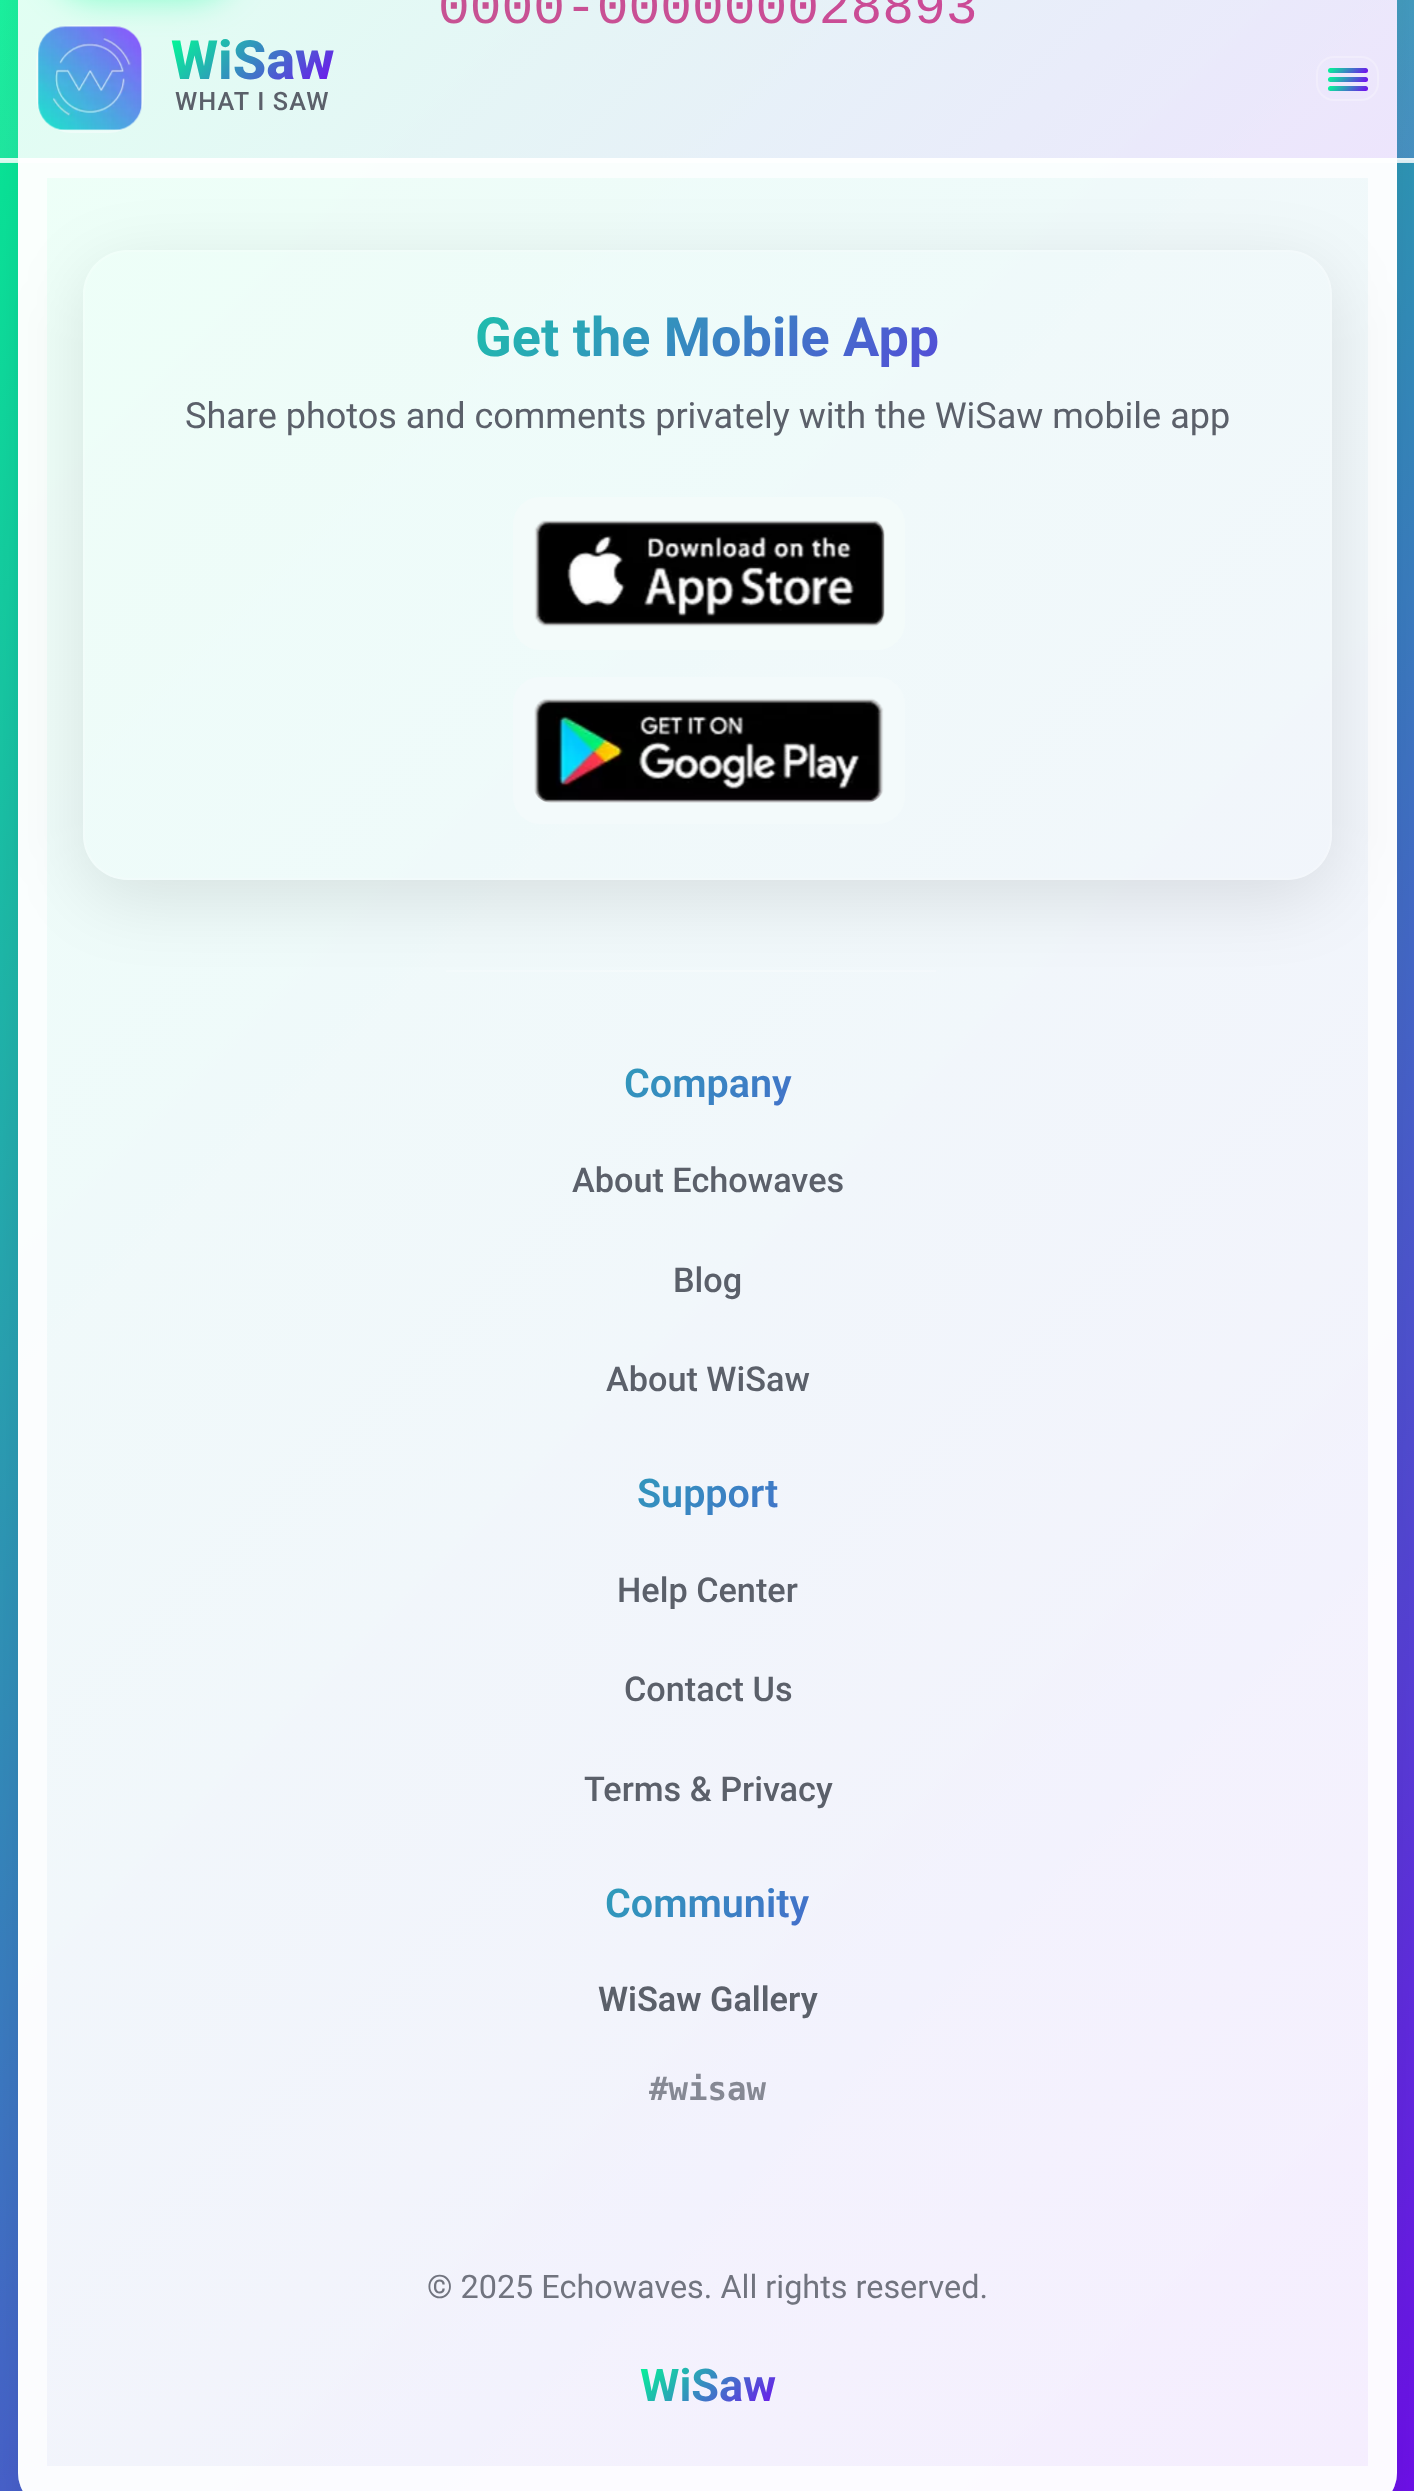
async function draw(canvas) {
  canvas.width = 1414;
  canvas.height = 2491;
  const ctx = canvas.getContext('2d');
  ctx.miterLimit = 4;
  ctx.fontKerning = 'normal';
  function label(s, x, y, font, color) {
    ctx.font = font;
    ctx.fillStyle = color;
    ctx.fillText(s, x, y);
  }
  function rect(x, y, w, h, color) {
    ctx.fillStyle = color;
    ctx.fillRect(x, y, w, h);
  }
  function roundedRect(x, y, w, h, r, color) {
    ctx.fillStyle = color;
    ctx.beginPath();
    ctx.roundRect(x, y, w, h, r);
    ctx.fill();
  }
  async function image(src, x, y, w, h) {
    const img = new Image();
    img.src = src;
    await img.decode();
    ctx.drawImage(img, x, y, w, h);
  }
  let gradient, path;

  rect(0, 0, 1414, 2491, '#fff');
  gradient = ctx.createLinearGradient(-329, 160, 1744, 2234);
  gradient.addColorStop(0, '#00ff94');
  gradient.addColorStop(1, '#720cf0');
  ctx.fillStyle = gradient;
  ctx.fillRect(0, 0, 1414, 2491);
  ctx.save();
  path = new Path2D('M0 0H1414V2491H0ZM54-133H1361C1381-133 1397-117 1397-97V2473C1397 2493 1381 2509 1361 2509H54C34 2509 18 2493 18 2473V-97C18-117 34-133 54-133Z');
  ctx.clip(path, 'evenodd');
  ctx.fillStyle = '#0000001f';
  ctx.filter = 'blur(36px)';
  ctx.beginPath();
  ctx.roundRect(18, -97, 1379, 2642, 36);
  ctx.fill();
  ctx.filter = 'none';
  ctx.restore();
  roundedRect(18, -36, 1379, 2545, 36, '#fffffffa');
  ctx.beginPath();
  ctx.roundRect(19, -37, 1377, 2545, 35);
  ctx.strokeStyle = '#ffffff66';
  ctx.lineWidth = 2;
  ctx.stroke();
  ctx.fillStyle = '#00ff9480';
  ctx.filter = 'blur(17px)';
  ctx.beginPath();
  ctx.roundRect(52, -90, 184, 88, 44);
  ctx.fill();
  ctx.filter = 'none';
  label('0000-000000028893', 438, 23, '52.9px Liberation Mono', '#d63384');
  gradient = ctx.createLinearGradient(-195, 420, 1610, 2224);
  gradient.addColorStop(0, '#00ff940d');
  gradient.addColorStop(1, '#720cf00d');
  ctx.fillStyle = gradient;
  ctx.fillRect(47, 178, 1321, 2288);
  gradient = ctx.createLinearGradient(83, 971, 1332, 971);
  gradient.addColorStop(0, '#ffffff00');
  gradient.addColorStop(0.5, '#ffffff4d');
  gradient.addColorStop(1, '#ffffff00');
  ctx.fillStyle = gradient;
  ctx.fillRect(446, 970, 490, 2);
  ctx.save();
  path = new Path2D('M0 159H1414V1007H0ZM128 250H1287C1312 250 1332 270 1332 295V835C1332 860 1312 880 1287 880H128C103 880 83 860 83 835V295C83 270 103 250 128 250Z');
  ctx.clip(path, 'evenodd');
  ctx.fillStyle = '#0000001a';
  ctx.filter = 'blur(36px)';
  ctx.beginPath();
  ctx.roundRect(83, 268, 1249, 630, 45);
  ctx.fill();
  ctx.filter = 'none';
  ctx.restore();
  ctx.beginPath();
  ctx.roundRect(84, 251, 1247, 628, 44);
  ctx.strokeStyle = '#ffffff33';
  ctx.stroke();
  ctx.font = 'bold 54px Roboto';
  gradient = ctx.createLinearGradient(430, 62, 985, 617);
  gradient.addColorStop(0, '#00ff94');
  gradient.addColorStop(1, '#720cf0');
  ctx.fillStyle = gradient;
  ctx.fillText('Get the Mobile App', 475, 356);
  label('Share photos and comments privately with the WiSaw mobile app', 185, 428, '36px Roboto', '#5b606a');
  roundedRect(513, 497, 392, 153, 27, '#f3fbfa');
  await image('assets/img1.png', 534, 520, 351, 107);
  roundedRect(513, 677, 392, 147, 27, '#f3fafb');
  await image('assets/img2.png', 534, 698, 350, 105);
  ctx.font = '600 39.5px Roboto';
  gradient = ctx.createLinearGradient(384, 761, 1032, 1409);
  gradient.addColorStop(0, '#00ff94');
  gradient.addColorStop(1, '#720cf0');
  ctx.fillStyle = gradient;
  ctx.fillText('Company', 624, 1097);
  label('About Echowaves', 572, 1192, '500 34.25px Roboto', '#5b606a');
  label('Blog', 673, 1292, '500 34.25px Roboto', '#5b606a');
  label('About WiSaw', 606, 1391, '500 34.25px Roboto', '#5b606a');
  ctx.font = '600 39.5px Roboto';
  gradient = ctx.createLinearGradient(384, 1171, 1032, 1819);
  gradient.addColorStop(0, '#00ff94');
  gradient.addColorStop(1, '#720cf0');
  ctx.fillStyle = gradient;
  ctx.fillText('Support', 637, 1507);
  label('Help Center', 617, 1602, '500 34.25px Roboto', '#5b606a');
  label('Contact Us', 624, 1701, '500 34.25px Roboto', '#5b606a');
  label('Terms & Privacy', 584, 1801, '500 34.25px Roboto', '#5b606a');
  ctx.font = '600 39.5px Roboto';
  gradient = ctx.createLinearGradient(384, 1580, 1032, 2228);
  gradient.addColorStop(0, '#00ff94');
  gradient.addColorStop(1, '#720cf0');
  ctx.fillStyle = gradient;
  ctx.fillText('Community', 605, 1917);
  label('WiSaw Gallery', 598, 2011, '600 34.25px Roboto', '#5b606a');
  label('#wisaw', 649, 2100, 'bold 32.4px DejaVu Sans Mono', '#868994');
  label('© 2025 Echowaves. All rights reserved.', 427, 2298, '32.4px Roboto', '#71747f');
  ctx.font = 'bold 45px Roboto';
  gradient = ctx.createLinearGradient(660, 2338, 755, 2433);
  gradient.addColorStop(0, '#00ff94');
  gradient.addColorStop(1, '#720cf0');
  ctx.fillStyle = gradient;
  ctx.fillText('WiSaw', 640, 2401);
  rect(0, 0, 1414, 160, '#ffffff1a');
  rect(0, 158, 1414, 2, '#ffffff33');
  gradient = ctx.createLinearGradient(314, -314, 1101, 472);
  gradient.addColorStop(0, '#00ff941a');
  gradient.addColorStop(1, '#720cf01a');
  ctx.fillStyle = gradient;
  ctx.fillRect(0, 0, 1414, 158);
  roundedRect(36, 25, 108, 108, 36, '#ffffff33');
  ctx.beginPath();
  ctx.roundRect(37, 26, 106, 106, 35);
  ctx.strokeStyle = '#ffffff4d';
  ctx.stroke();
  await image('assets/img3.png', 38, 26, 104, 104);
  ctx.font = '800 54px Roboto';
  gradient = ctx.createLinearGradient(198, 6.5, 307, 115);
  gradient.addColorStop(0, '#00ff94');
  gradient.addColorStop(1, '#720cf0');
  ctx.fillStyle = gradient;
  ctx.fillText('WiSaw', 171, 79);
  ctx.letterSpacing = '1.1px';
  label('WHAT I SAW', 175, 110, '500 25.25px Roboto', '#5b606a');
  ctx.beginPath();
  ctx.roundRect(1317, 57, 61, 43, 17);
  ctx.strokeStyle = '#f1edfc';
  ctx.stroke();
  gradient = ctx.createLinearGradient(1337, 59, 1359, 81);
  gradient.addColorStop(0, '#00ff94');
  gradient.addColorStop(1, '#720cf0');
  ctx.fillStyle = gradient;
  ctx.beginPath();
  ctx.roundRect(1328, 68, 40, 5, 2.5);
  ctx.fill();
  gradient = ctx.createLinearGradient(1337, 68, 1359, 90);
  gradient.addColorStop(0, '#00ff94');
  gradient.addColorStop(1, '#720cf0');
  ctx.fillStyle = gradient;
  ctx.beginPath();
  ctx.roundRect(1328, 77, 40, 5, 2.5);
  ctx.fill();
  gradient = ctx.createLinearGradient(1337, 77, 1359, 99);
  gradient.addColorStop(0, '#00ff94');
  gradient.addColorStop(1, '#720cf0');
  ctx.fillStyle = gradient;
  ctx.beginPath();
  ctx.roundRect(1328, 86, 40, 5, 2.5);
  ctx.fill();
  rect(0, 158, 1414, 5, '#ffffffcc');
  rect(0, 158, 1414, 2, '#ffffff33');
  rect(0, 160, 1414, 2, '#ffffff33');
}

draw(document.querySelector('canvas'));
